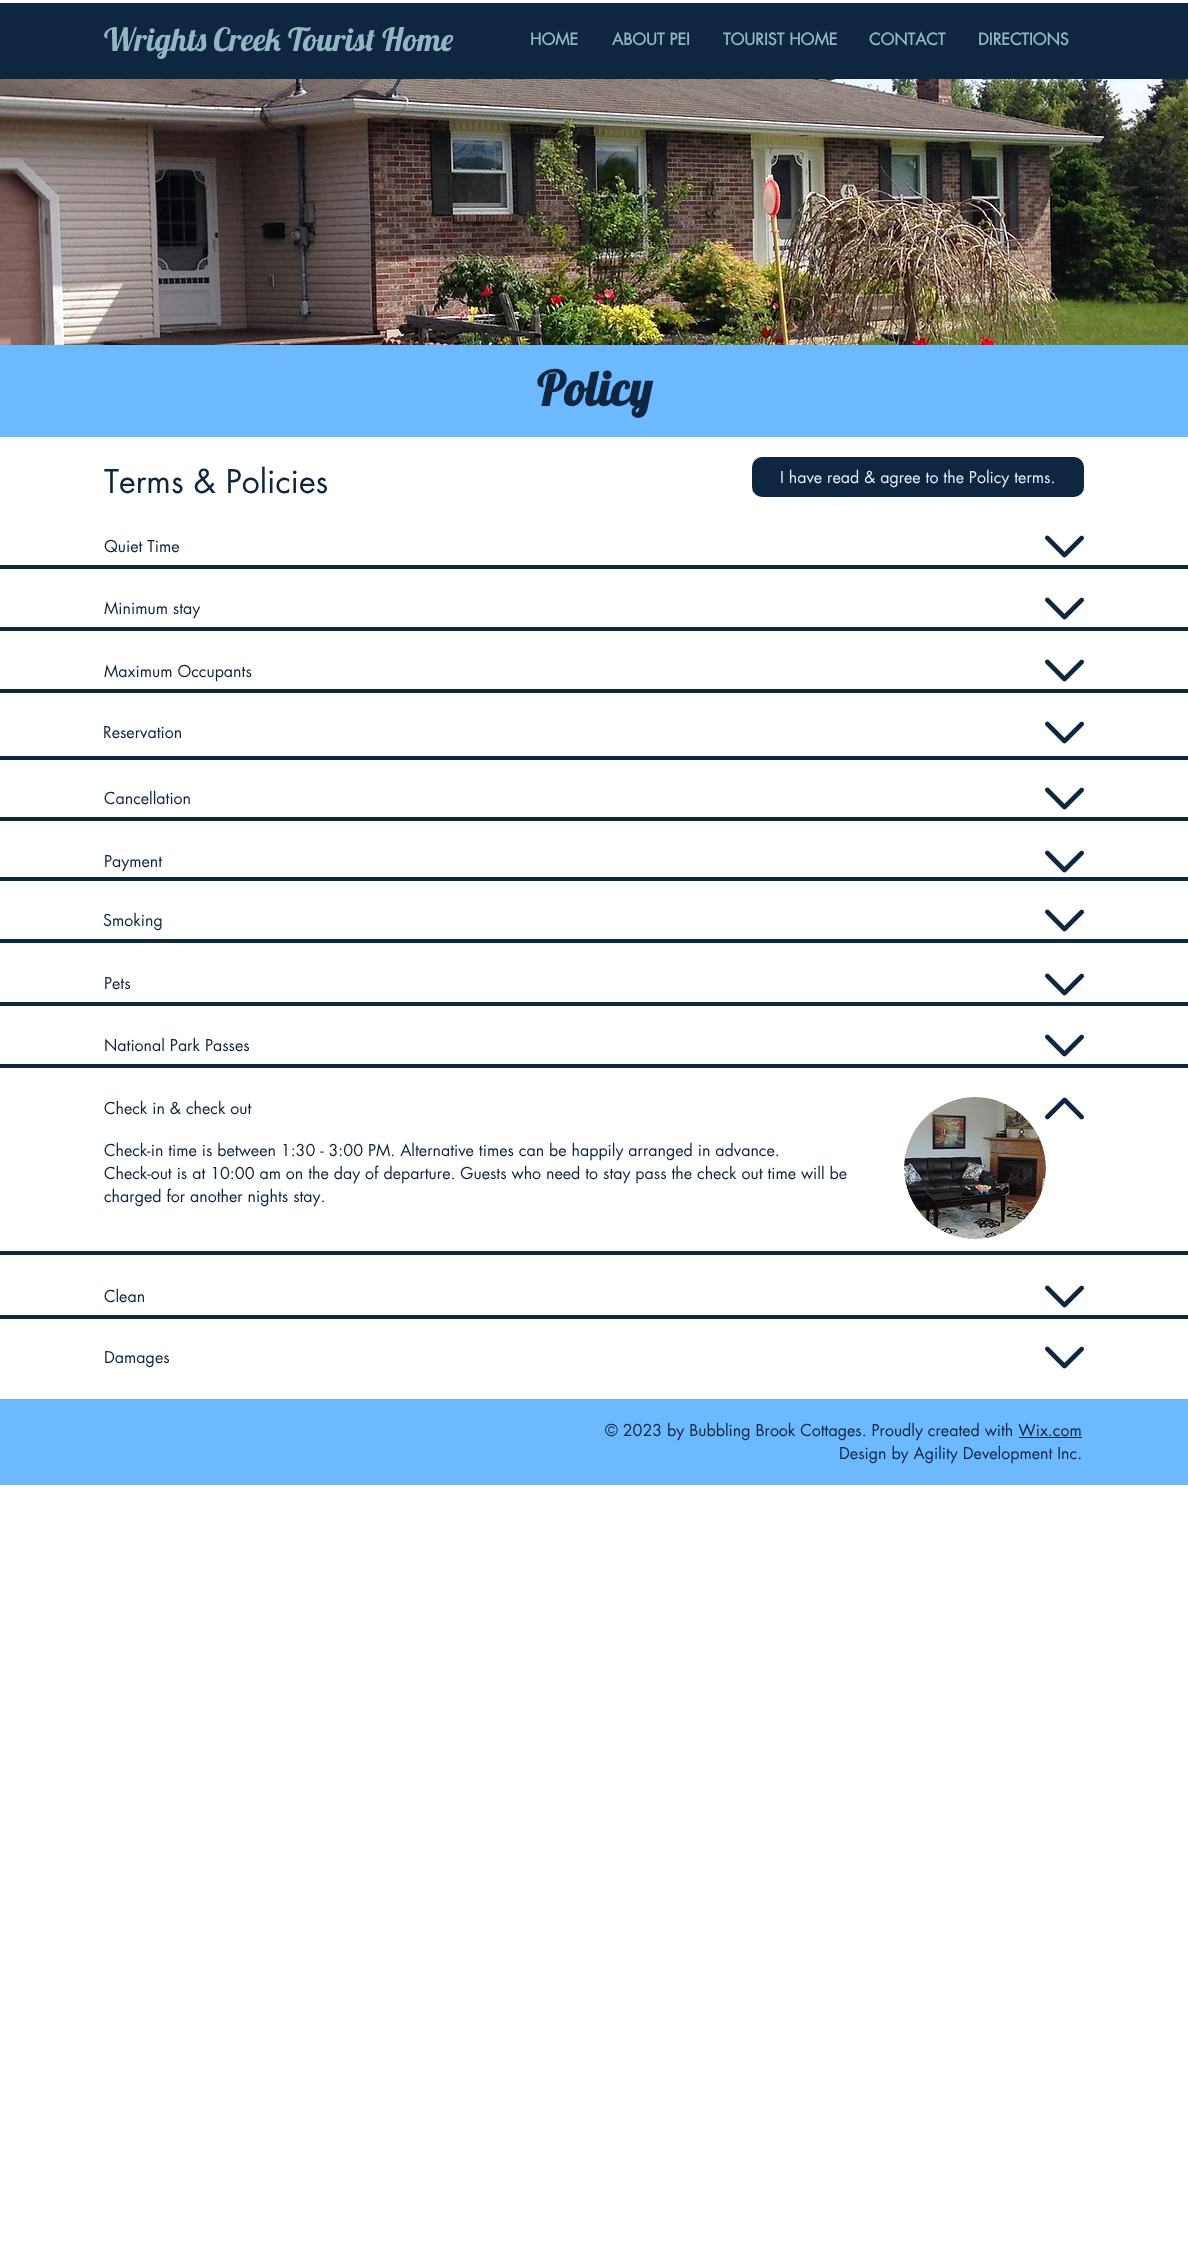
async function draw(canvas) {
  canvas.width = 1188;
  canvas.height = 2251;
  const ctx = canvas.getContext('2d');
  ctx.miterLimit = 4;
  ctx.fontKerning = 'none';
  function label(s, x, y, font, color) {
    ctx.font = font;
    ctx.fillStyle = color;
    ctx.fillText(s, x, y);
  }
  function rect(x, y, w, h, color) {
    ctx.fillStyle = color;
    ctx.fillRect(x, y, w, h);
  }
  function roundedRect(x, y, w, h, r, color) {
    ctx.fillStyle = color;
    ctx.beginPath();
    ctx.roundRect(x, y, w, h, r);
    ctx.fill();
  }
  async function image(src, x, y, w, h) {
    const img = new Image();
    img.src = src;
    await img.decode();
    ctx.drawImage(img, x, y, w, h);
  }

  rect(0, 0, 1188, 2251, '#fff');
  rect(0, 3, 1188, 76, '#0e2640');
  label('Wrights Creek Tourist Home', 104, 51, '32px Lobster', '#93b5c4');
  label('HOME', 530, 45, 'bold 16px futura', '#93b5c4');
  label('ABOUT PEI', 612, 45, 'bold 16px futura', '#93b5c4');
  label('TOURIST HOME', 723, 45, 'bold 16px futura', '#93b5c4');
  label('CONTACT', 869, 45, 'bold 16px futura', '#93b5c4');
  label('DIRECTIONS', 978, 45, 'bold 16px futura', '#93b5c4');
  await image('assets/img1.png', 0, 79, 1188, 266);
  rect(0, 345, 1188, 92, '#6cb9ff');
  label('Policy', 537, 406, 'bold 48px Lobster', '#0e2640');
  label('Terms & Policies', 104, 493, '32px futura', '#0e2640');
  roundedRect(752, 457, 332, 40, 10, '#0e2640');
  label('I have read & agree to the Policy terms.', 780, 483, '16px futura', '#e1eefe');
  label('Quiet Time', 104, 552, '16px futura', '#0e2640');
  await image('assets/img2.png', 1045, 535, 39, 23);
  rect(0, 565, 1188, 4, '#0e2640');
  label('Minimum stay', 104, 614, '16px futura', '#0e2640');
  await image('assets/img2.png', 1045, 597, 39, 23);
  rect(0, 627, 1188, 4, '#0e2640');
  label('Maximum Occupants', 104, 677, '16px futura', '#0e2640');
  await image('assets/img2.png', 1045, 659, 39, 23);
  rect(0, 689, 1188, 4, '#0e2640');
  label('Reservation', 103, 738, '16px futura', '#0e2640');
  await image('assets/img2.png', 1045, 721, 39, 23);
  rect(0, 756, 1188, 4, '#0e2640');
  label('Cancellation', 104, 804, '16px futura', '#0e2640');
  await image('assets/img2.png', 1045, 787, 39, 23);
  rect(0, 817, 1188, 4, '#0e2640');
  label('Payment', 104, 867, '16px futura', '#0e2640');
  await image('assets/img2.png', 1045, 850, 39, 23);
  rect(0, 877, 1188, 4, '#0e2640');
  label('Smoking', 103, 926, '16px futura', '#0e2640');
  await image('assets/img2.png', 1045, 909, 39, 23);
  rect(0, 939, 1188, 4, '#0e2640');
  label('Pets', 104, 989, '16px futura', '#0e2640');
  await image('assets/img2.png', 1045, 973, 39, 23);
  rect(0, 1002, 1188, 4, '#0e2640');
  label('National Park Passes', 104, 1051, '16px futura', '#0e2640');
  await image('assets/img2.png', 1045, 1034, 39, 23);
  rect(0, 1064, 1188, 4, '#0e2640');
  label('Check in & check out', 104, 1114, '16px futura', '#0e2640');
  await image('assets/img4.png', 1045, 1097, 39, 23);
  await image('assets/img3.png', 904, 1097, 142, 142);
  label('Check-in time is between 1:30 - 3:00 PM. Alternative times can be happily arranged in advance.', 104, 1156, '16px futura', '#0e2640');
  label('Check-out is at 10:00 am on the day of departure. Guests who need to stay pass the check out time will be', 104, 1179, '16px futura', '#0e2640');
  label('charged for another nights stay.', 104, 1202, '16px futura', '#0e2640');
  rect(0, 1251, 1188, 4, '#0e2640');
  label('Clean', 104, 1302, '16px futura', '#0e2640');
  await image('assets/img2.png', 1045, 1285, 39, 23);
  rect(0, 1315, 1188, 4, '#0e2640');
  label('Damages', 104, 1363, '16px futura', '#0e2640');
  await image('assets/img2.png', 1045, 1346, 39, 23);
  rect(0, 1399, 1188, 86, '#6cb9ff');
  label('© 2023 by Bubbling Brook Cottages. Proudly created with Wix.com', 605, 1436, '16px futura', '#0e2640');
  rect(1019, 1437, 63, 1, '#0e2640');
  label('Design by Agility Development Inc.', 839, 1459, '16px futura', '#0e2640');
}

draw(document.querySelector('canvas'));
